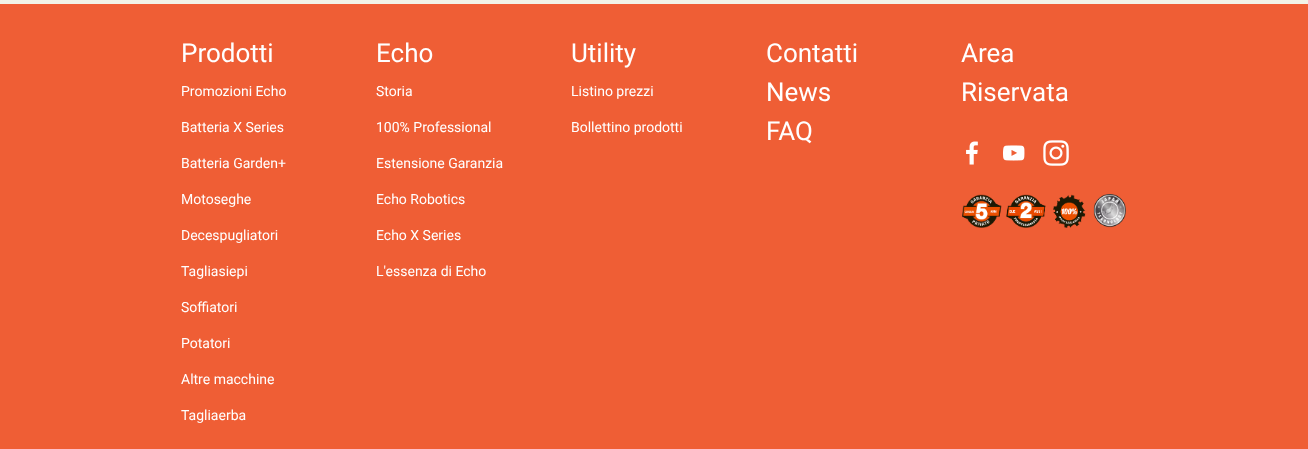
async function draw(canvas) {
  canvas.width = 1308;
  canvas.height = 449;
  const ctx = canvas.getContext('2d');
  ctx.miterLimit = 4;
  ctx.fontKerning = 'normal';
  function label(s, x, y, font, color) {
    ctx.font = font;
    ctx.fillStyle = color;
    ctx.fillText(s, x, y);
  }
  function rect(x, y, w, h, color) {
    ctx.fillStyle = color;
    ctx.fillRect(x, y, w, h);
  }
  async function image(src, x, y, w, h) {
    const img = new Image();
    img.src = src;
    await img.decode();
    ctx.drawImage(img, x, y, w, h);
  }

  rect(0, 0, 1308, 449, '#f2f3e7');
  rect(0, 4, 1308, 445, '#ef5e35');
  label('Prodotti', 181, 62, '26px Roboto', '#fff');
  label('Promozioni Echo', 181, 96, '14px Roboto', '#fff');
  label('Batteria X Series', 181, 132, '14px Roboto', '#fff');
  label('Batteria Garden+', 181, 168, '14px Roboto', '#fff');
  label('Motoseghe', 181, 204, '14px Roboto', '#fff');
  label('Decespugliatori', 181, 240, '14px Roboto', '#fff');
  label('Tagliasiepi', 181, 276, '14px Roboto', '#fff');
  label('Soffiatori', 181, 312, '14px Roboto', '#fff');
  label('Potatori', 181, 348, '14px Roboto', '#fff');
  label('Altre macchine', 181, 384, '14px Roboto', '#fff');
  label('Tagliaerba', 181, 420, '14px Roboto', '#fff');
  label('Echo', 376, 62, '26px Roboto', '#fff');
  label('Storia', 376, 96, '14px Roboto', '#fff');
  label('100% Professional', 376, 132, '14px Roboto', '#fff');
  label('Estensione Garanzia', 376, 168, '14px Roboto', '#fff');
  label('Echo Robotics', 376, 204, '14px Roboto', '#fff');
  label('Echo X Series', 376, 240, '14px Roboto', '#fff');
  label('L\'essenza di Echo', 376, 276, '14px Roboto', '#fff');
  label('Utility', 571, 62, '26px Roboto', '#fff');
  label('Listino prezzi', 571, 96, '14px Roboto', '#fff');
  label('Bollettino prodotti', 571, 132, '14px Roboto', '#fff');
  label('Contatti', 766, 62, '26px Roboto', '#fff');
  label('News', 766, 101, '26px Roboto', '#fff');
  label('FAQ', 766, 140, '26px Roboto', '#fff');
  label('Area', 961, 62, '26px Roboto', '#fff');
  label('Riservata', 961, 101, '26px Roboto', '#fff');
  await image('assets/img1.png', 966, 141, 12, 24);
  await image('assets/img2.png', 1003, 145, 22, 16);
  await image('assets/img3.png', 1043, 140, 26, 26);
  await image('assets/img4.png', 962, 194, 164, 34);
}

draw(document.querySelector('canvas'));
